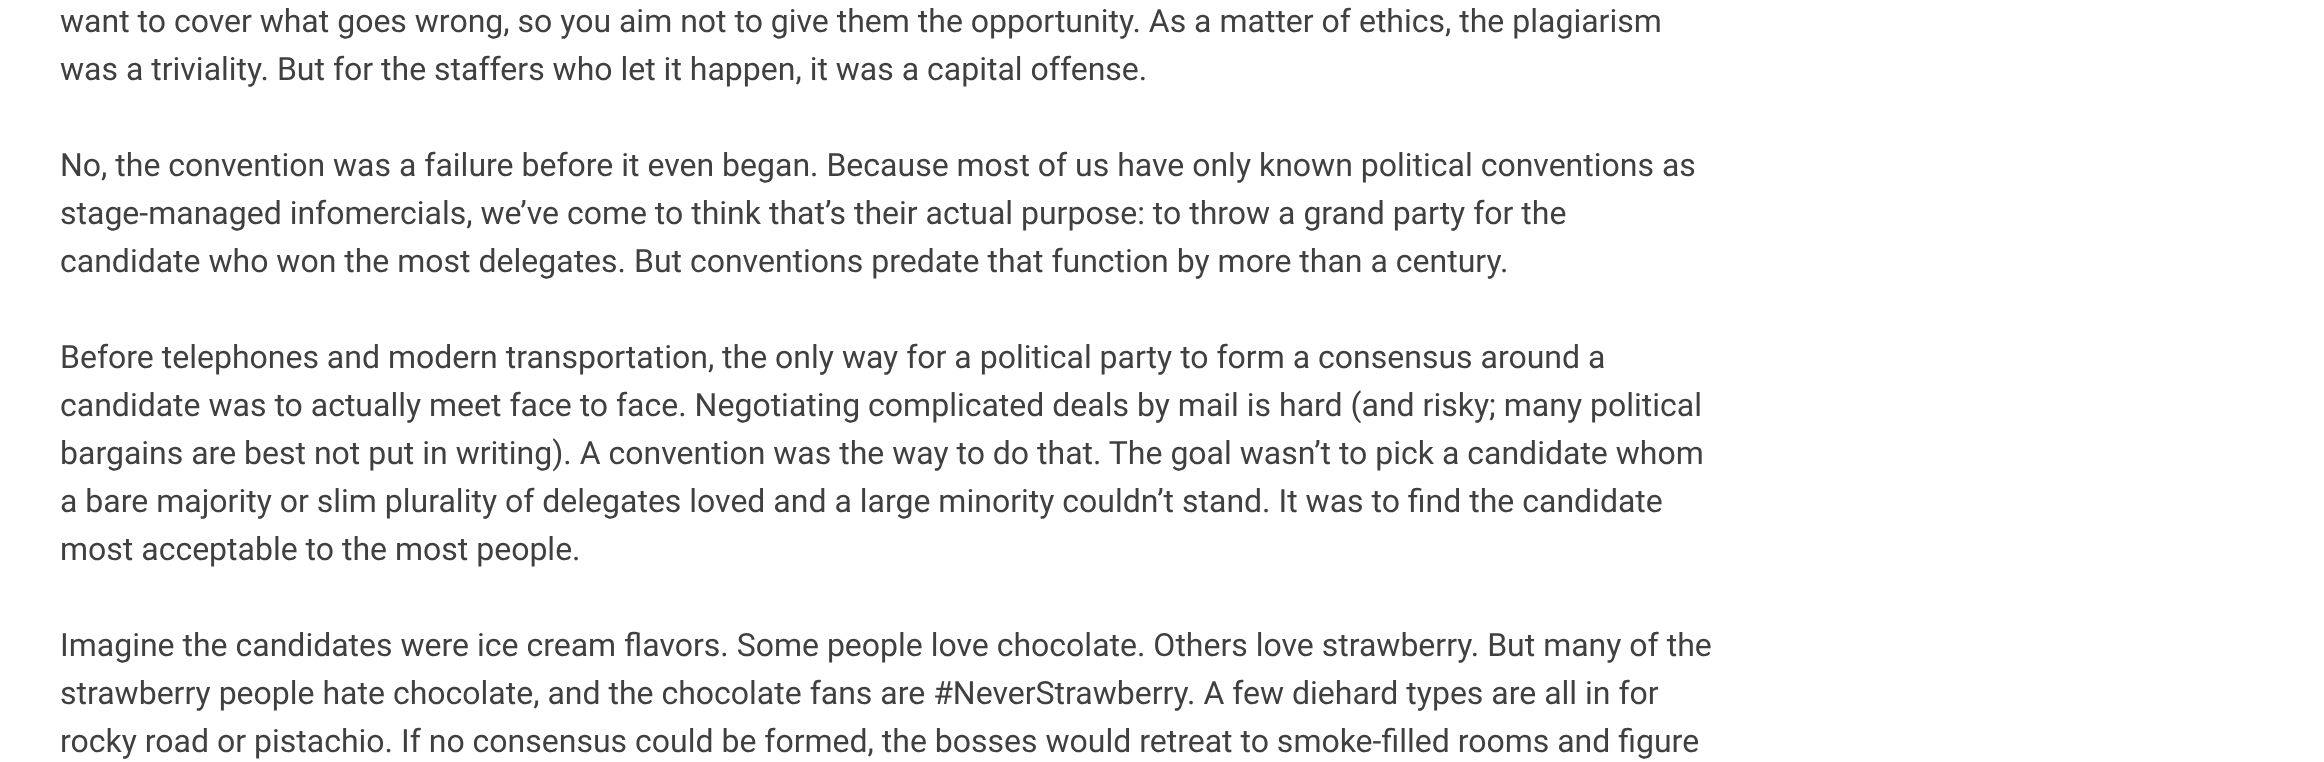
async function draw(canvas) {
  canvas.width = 2324;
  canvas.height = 762;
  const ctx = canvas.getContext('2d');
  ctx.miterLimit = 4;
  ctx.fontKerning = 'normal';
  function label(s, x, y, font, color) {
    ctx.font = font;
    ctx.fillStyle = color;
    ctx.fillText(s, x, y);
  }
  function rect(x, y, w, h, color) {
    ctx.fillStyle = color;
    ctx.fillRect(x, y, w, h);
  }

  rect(0, 0, 2324, 762, '#fff');
  label('want to cover what goes wrong, so you aim not to give them the opportunity. As a matter of ethics, the plagiarism', 60, 32, '32px Roboto', '#404040');
  label('was a triviality. But for the staffers who let it happen, it was a capital offense.', 60, 80, '32px Roboto', '#404040');
  label('No, the convention was a failure before it even began. Because most of us have only known political conventions as', 60, 176, '32px Roboto', '#404040');
  label('stage-managed infomercials, we’ve come to think that’s their actual purpose: to throw a grand party for the', 60, 224, '32px Roboto', '#404040');
  label('candidate who won the most delegates. But conventions predate that function by more than a century.', 60, 272, '32px Roboto', '#404040');
  label('Before telephones and modern transportation, the only way for a political party to form a consensus around a', 60, 368, '32px Roboto', '#404040');
  label('candidate was to actually meet face to face. Negotiating complicated deals by mail is hard (and risky; many political', 60, 416, '32px Roboto', '#404040');
  label('bargains are best not put in writing). A convention was the way to do that. The goal wasn’t to pick a candidate whom', 60, 464, '32px Roboto', '#404040');
  label('a bare majority or slim plurality of delegates loved and a large minority couldn’t stand. It was to find the candidate', 60, 512, '32px Roboto', '#404040');
  label('most acceptable to the most people.', 60, 560, '32px Roboto', '#404040');
  label('Imagine the candidates were ice cream flavors. Some people love chocolate. Others love strawberry. But many of the', 60, 656, '32px Roboto', '#404040');
  label('strawberry people hate chocolate, and the chocolate fans are #NeverStrawberry. A few diehard types are all in for', 60, 704, '32px Roboto', '#404040');
  label('rocky road or pistachio. If no consensus could be formed, the bosses would retreat to smoke-filled rooms and figure', 60, 752, '32px Roboto', '#404040');
}

draw(document.querySelector('canvas'));
